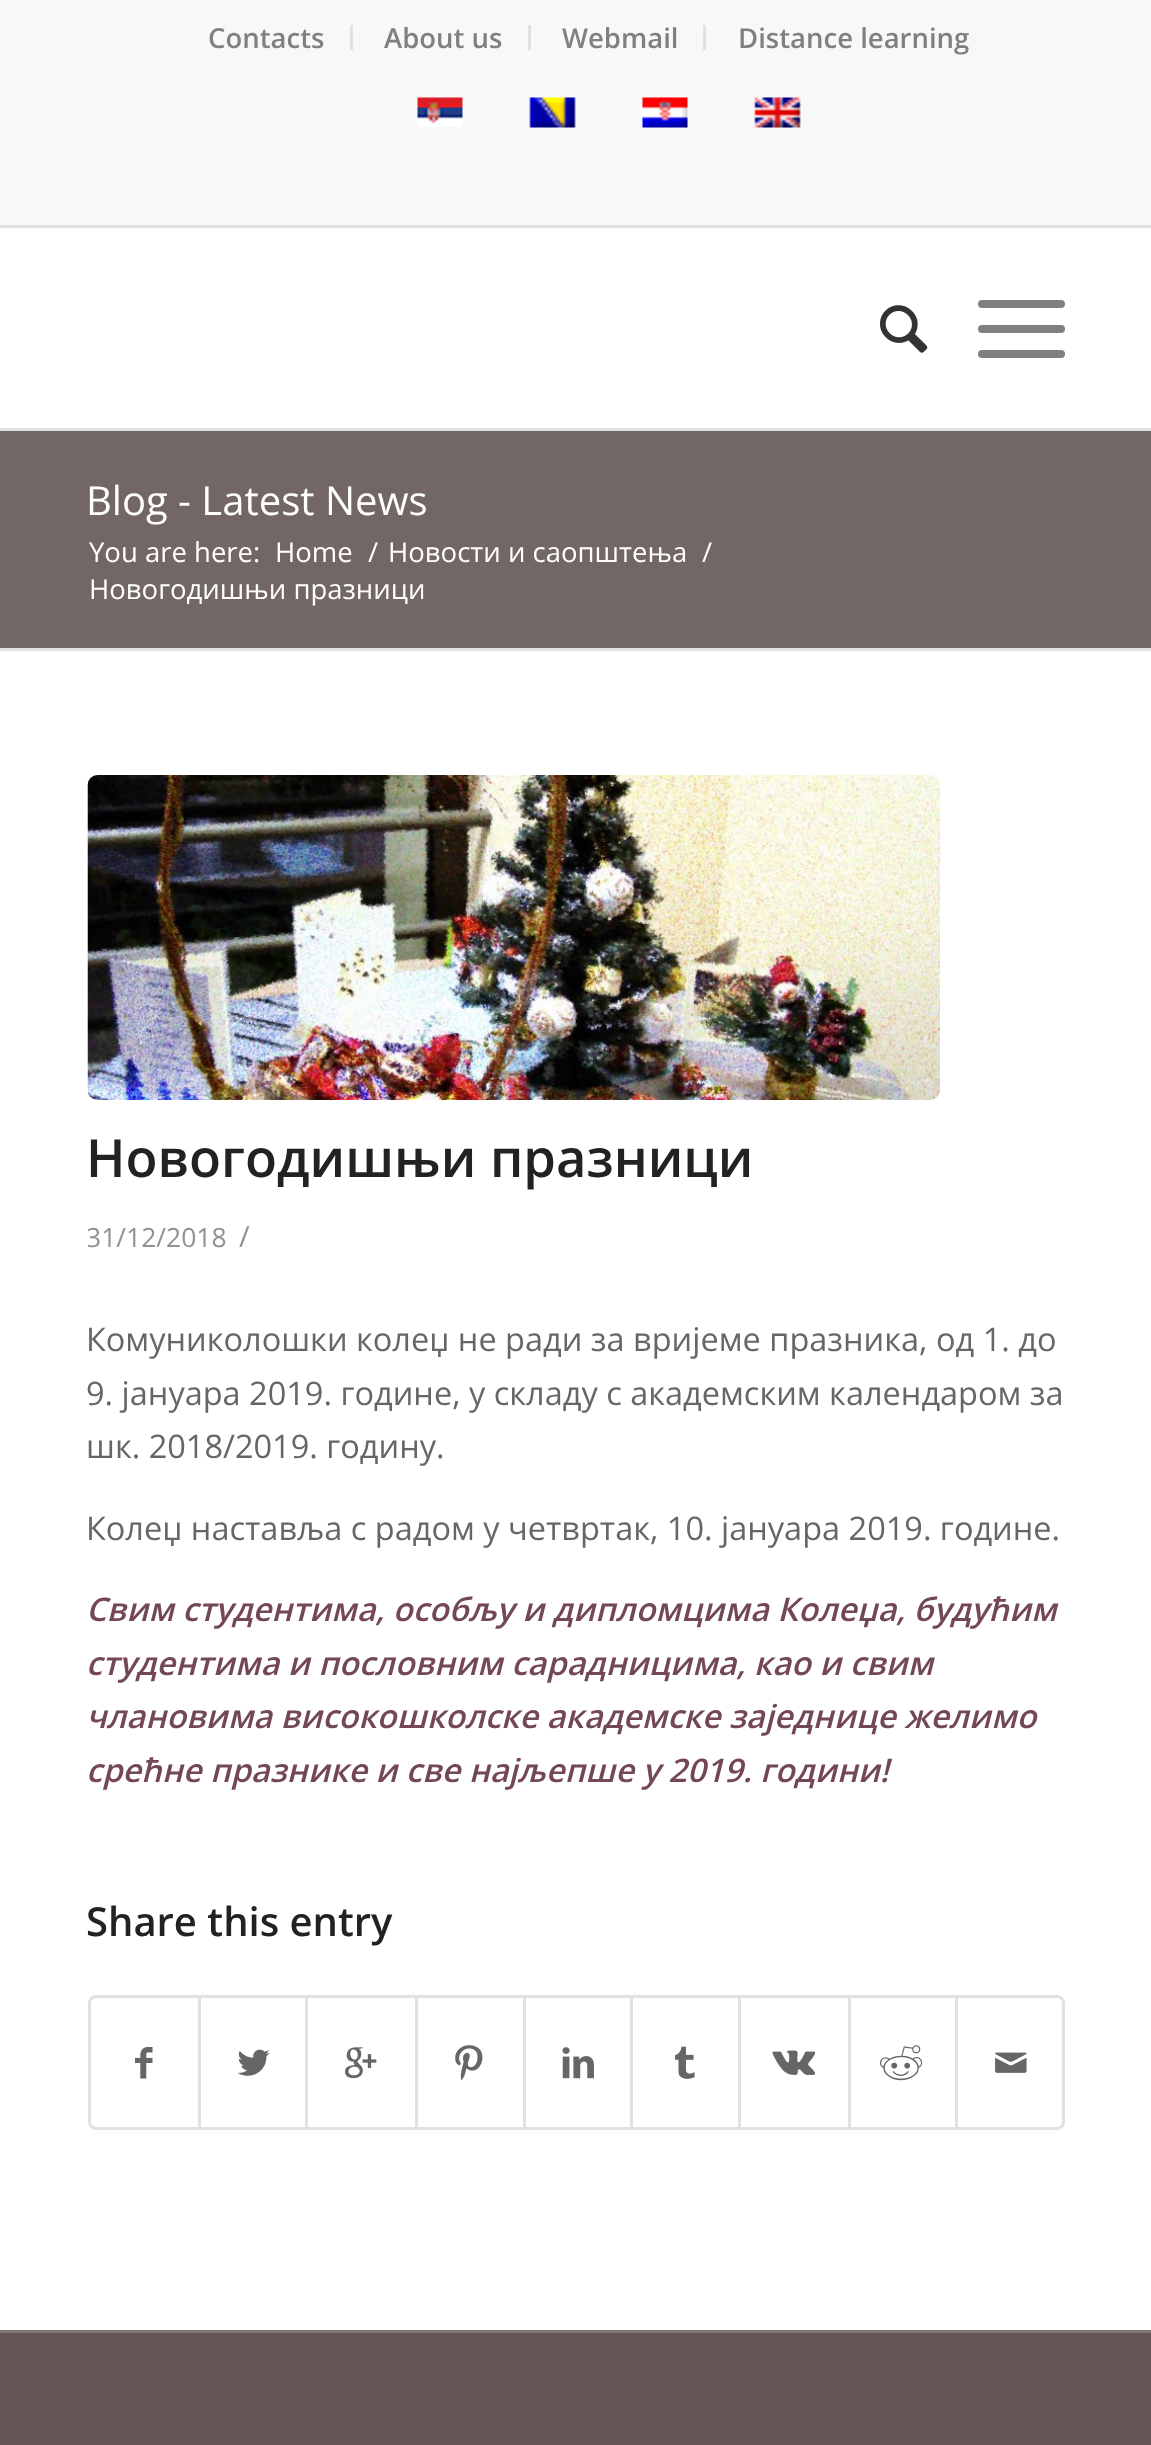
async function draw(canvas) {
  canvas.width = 1151;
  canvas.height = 2445;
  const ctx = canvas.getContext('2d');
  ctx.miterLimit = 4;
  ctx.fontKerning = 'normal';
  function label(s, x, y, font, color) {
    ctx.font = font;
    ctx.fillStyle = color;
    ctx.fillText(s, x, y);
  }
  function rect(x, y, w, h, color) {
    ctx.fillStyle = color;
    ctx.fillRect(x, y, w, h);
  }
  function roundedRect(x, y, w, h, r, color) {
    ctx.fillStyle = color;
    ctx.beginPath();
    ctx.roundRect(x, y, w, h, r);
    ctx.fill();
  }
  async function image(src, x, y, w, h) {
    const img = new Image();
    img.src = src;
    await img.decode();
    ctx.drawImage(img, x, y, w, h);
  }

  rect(0, 0, 1151, 2445, '#fff');
  rect(0, 0, 1151, 225, '#f8f8f8');
  rect(0, 225, 1151, 3, '#e1e1e1');
  rect(350, 25, 3, 25, '#e1e1e1');
  label('Contacts', 208, 48, '600 27.5px Open Sans', '#808080');
  rect(528, 25, 3, 25, '#e1e1e1');
  label('About us', 384, 48, '600 27.5px Open Sans', '#808080');
  rect(703, 25, 3, 25, '#e1e1e1');
  label('Webmail', 562, 48, '600 27.5px Open Sans', '#808080');
  label('Distance learning', 738, 48, '600 27.5px Open Sans', '#808080');
  await image('assets/img1.png', 417, 97, 46, 30);
  await image('assets/img2.png', 529, 97, 47, 31);
  await image('assets/img3.png', 642, 97, 46, 31);
  await image('assets/img4.png', 754, 97, 47, 31);
  rect(0, 428, 1151, 3, '#e1e1e1');
  await image('assets/img5.png', 880, 305, 48, 48);
  roundedRect(978, 325, 87, 8, 4, '#808080');
  roundedRect(978, 300, 87, 8, 4, '#808080');
  roundedRect(978, 350, 87, 8, 4, '#808080');
  rect(0, 431, 1151, 217, '#736766');
  label('Blog - Latest News', 86, 515, '40px Open Sans', '#fff');
  label('You are here:', 89, 562, '27.5px Open Sans', '#fff');
  label('Home', 275, 562, '27.5px Open Sans', '#fff');
  label('/', 368, 562, '27.5px Open Sans', '#fff');
  label('Новости и саопштења', 388, 562, '27.5px Open Sans', '#fff');
  label('/', 702, 562, '27.5px Open Sans', '#fff');
  label('Новогодишњи празници', 89, 599, '27.5px Open Sans', '#fff');
  rect(0, 648, 1151, 3, '#e1e1e1');
  await image('assets/img6.png', 87, 775, 853, 325);
  label('Новогодишњи празници', 86, 1177, '600 52.5px Open Sans', '#222');
  ctx.save();
  ctx.beginPath();
  ctx.rect(88, 1125, 977, 1030);
  ctx.clip();
  label('31/12/2018', 86, 1247, '26.5px Open Sans', '#919191');
  ctx.restore();
  label('/', 239, 1247, '29px Open Sans', '#919191');
  label('Комуниколошки колеџ не ради за вријеме празника, од 1. до', 86, 1351, '32.5px Open Sans', '#666');
  label('9. јануара 2019. године, у складу с академским календаром за', 86, 1405, '32.5px Open Sans', '#666');
  label('шк. 2018/2019. годину.', 86, 1458, '32.5px Open Sans', '#666');
  label('Колеџ наставља с радом у четвртак, 10. јануара 2019. године.', 86, 1540, '32.5px Open Sans', '#666');
  label('Свим студентима, особљу и дипломцима Колеџа, будућим', 86, 1621, 'italic 600 32.5px Open Sans', '#734854');
  label('студентима и пословним сарадницима, као и свим', 86, 1675, 'italic 600 32.5px Open Sans', '#734854');
  label('члановима високошколске академске заједнице желимо', 86, 1728, 'italic 600 32.5px Open Sans', '#734854');
  label('срећне празнике и све најљепше у 2019. години!', 86, 1782, 'italic 600 32.5px Open Sans', '#734854');
  label('Share this entry', 86, 1936, '600 40px Open Sans', '#222');
  ctx.beginPath();
  ctx.roundRect(89.5, 1996.5, 974, 132, 6.5);
  ctx.strokeStyle = '#e1e1e1';
  ctx.lineWidth = 3;
  ctx.stroke();
  await image('assets/img7.png', 135, 2047, 18, 32);
  rect(198, 1998, 3, 130, '#e1e1e1');
  await image('assets/img8.png', 237, 2049, 33, 27);
  rect(305, 1998, 3, 130, '#e1e1e1');
  await image('assets/img9.png', 345, 2047, 32, 32);
  rect(415, 1998, 3, 130, '#e1e1e1');
  await image('assets/img10.png', 455, 2045, 28, 36);
  rect(523, 1998, 3, 130, '#e1e1e1');
  await image('assets/img11.png', 562, 2047, 32, 32);
  rect(630, 1998, 3, 130, '#e1e1e1');
  await image('assets/img12.png', 675, 2046, 20, 33);
  rect(738, 1998, 3, 130, '#e1e1e1');
  await image('assets/img13.png', 772, 2050, 44, 25);
  rect(848, 1998, 3, 130, '#e1e1e1');
  await image('assets/img14.png', 880, 2045, 43, 36);
  rect(955, 1998, 3, 130, '#e1e1e1');
  await image('assets/img15.png', 995, 2052, 32, 21);
  rect(0, 2333, 1151, 112, '#635655');
  rect(0, 2330, 1151, 3, '#807877');
}

draw(document.querySelector('canvas'));
